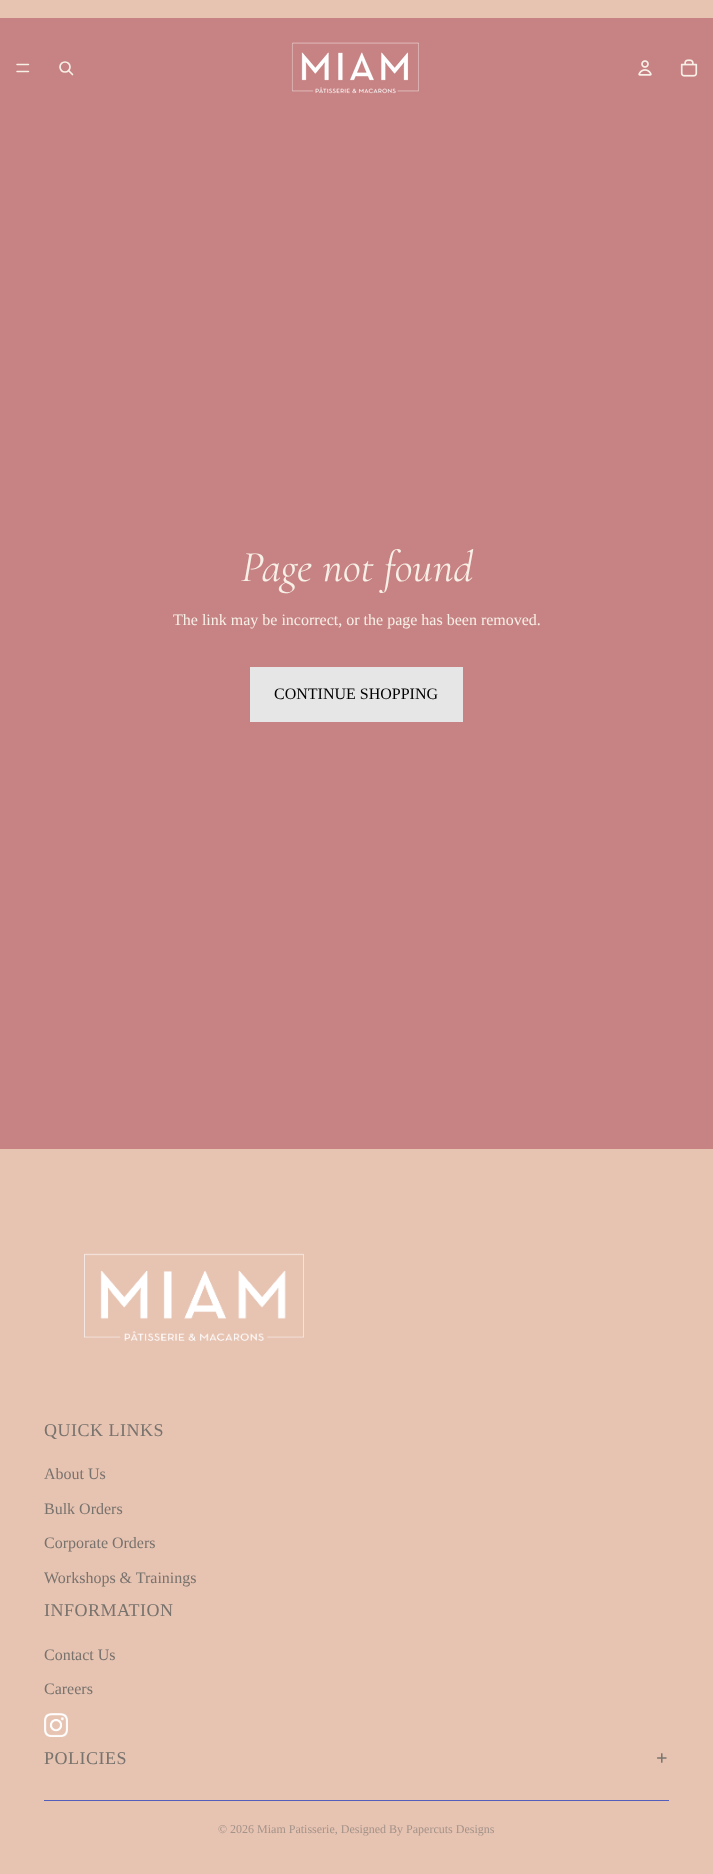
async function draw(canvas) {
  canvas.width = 713;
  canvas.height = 1874;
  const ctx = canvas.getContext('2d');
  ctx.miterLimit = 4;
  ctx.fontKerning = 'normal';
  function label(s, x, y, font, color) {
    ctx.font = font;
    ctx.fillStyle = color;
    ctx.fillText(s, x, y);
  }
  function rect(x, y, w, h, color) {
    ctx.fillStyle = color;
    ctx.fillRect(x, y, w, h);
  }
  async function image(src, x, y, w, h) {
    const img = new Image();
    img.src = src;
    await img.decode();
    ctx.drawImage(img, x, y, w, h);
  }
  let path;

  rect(0, 0, 713, 1874, '#c78283');
  rect(0, 0, 713, 18, '#e7c3b2');
  path = new Path2D('M17 64.5H28.5M17 71.5H28.5');
  ctx.strokeStyle = '#f7f0e7';
  ctx.lineWidth = 1.5;
  ctx.lineCap = 'round';
  ctx.stroke(path);
  ctx.beginPath();
  ctx.arc(65, 67, 5, 0, 2 * Math.PI);
  ctx.lineWidth = 1.7;
  ctx.stroke();
  path = new Path2D('M69 71L72.5 74.5');
  ctx.lineJoin = 'round';
  ctx.stroke(path);
  await image('assets/img1.png', 291, 42, 128, 52);
  await image('assets/img2.png', 638, 60, 14, 16);
  await image('assets/img3.png', 680, 59, 18, 18);
  label('Page not found', 241, 581, 'italic 44px Cormorant', '#f7f0e7');
  label('The link may be incorrect, or the page has been removed.', 173, 625, '16px Liberation Serif', '#f7f0e7');
  rect(250, 667, 213, 55, '#e6e6e6');
  label('CONTINUE SHOPPING', 274, 699, '16px Liberation Serif', '#000');
  rect(0, 1149, 713, 725, '#e7c3b2');
  await image('assets/img4.png', 84, 1253, 220, 88);
  ctx.letterSpacing = '0.5px';
  label('QUICK LINKS', 44, 1436, '18px Liberation Serif', '#78736d');
  ctx.letterSpacing = '0px';
  label('About Us', 44, 1479, '16px Liberation Serif', '#78736d');
  label('Bulk Orders', 44, 1514, '16px Liberation Serif', '#78736d');
  label('Corporate Orders', 44, 1548, '16px Liberation Serif', '#78736d');
  label('Workshops & Trainings', 44, 1583, '16px Liberation Serif', '#78736d');
  ctx.letterSpacing = '0.5px';
  label('INFORMATION', 44, 1616, '18px Liberation Serif', '#78736d');
  ctx.letterSpacing = '0px';
  label('Contact Us', 44, 1660, '16px Liberation Serif', '#78736d');
  label('Careers', 44, 1694, '16px Liberation Serif', '#78736d');
  await image('assets/img5.png', 44, 1713, 24, 24);
  ctx.letterSpacing = '0.5px';
  label('POLICIES', 44, 1764, '18px Liberation Serif', '#78736d');
  await image('assets/img6.png', 657, 1753, 10, 10);
  rect(44, 1800, 625, 1, '#535dbc');
  ctx.letterSpacing = '0px';
  label('© 2026 Miam Patisserie, Designed By Papercuts Designs', 218, 1833, '12px Liberation Serif', '#a49389');
}

draw(document.querySelector('canvas'));
